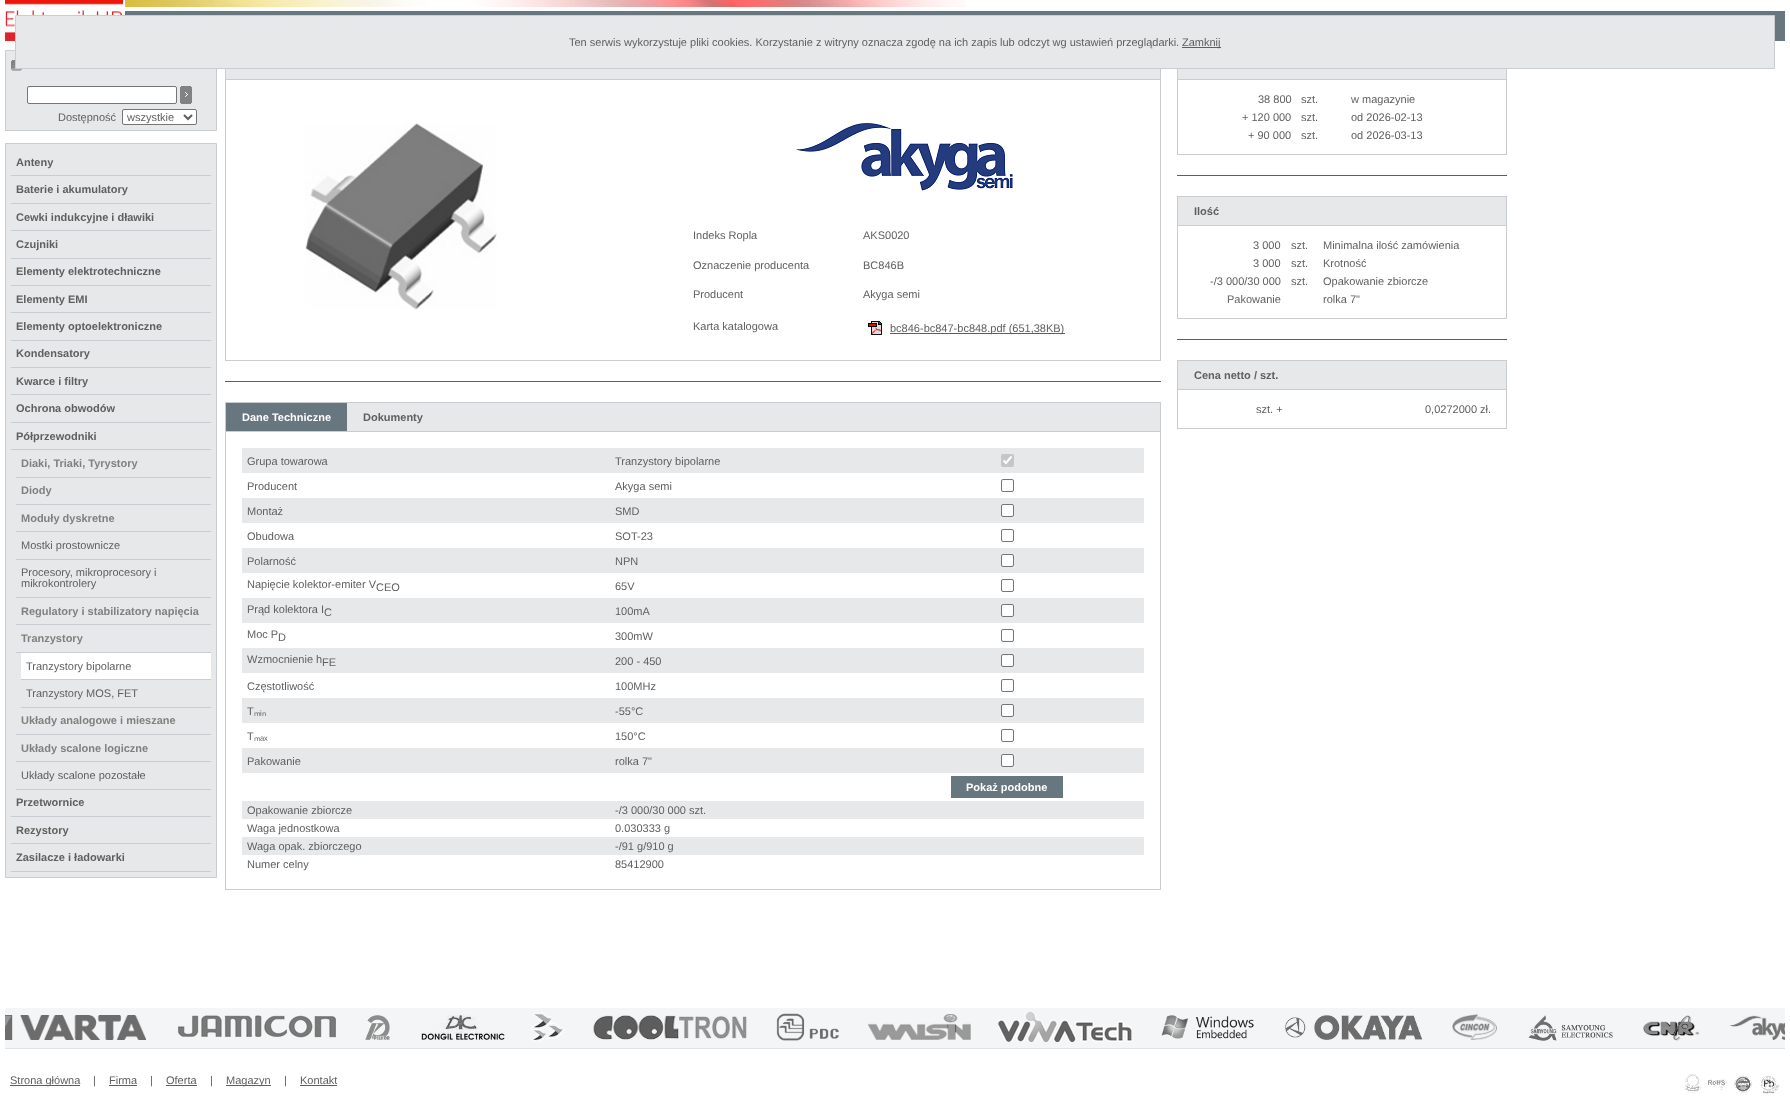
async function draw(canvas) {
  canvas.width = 1790;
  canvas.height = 1099;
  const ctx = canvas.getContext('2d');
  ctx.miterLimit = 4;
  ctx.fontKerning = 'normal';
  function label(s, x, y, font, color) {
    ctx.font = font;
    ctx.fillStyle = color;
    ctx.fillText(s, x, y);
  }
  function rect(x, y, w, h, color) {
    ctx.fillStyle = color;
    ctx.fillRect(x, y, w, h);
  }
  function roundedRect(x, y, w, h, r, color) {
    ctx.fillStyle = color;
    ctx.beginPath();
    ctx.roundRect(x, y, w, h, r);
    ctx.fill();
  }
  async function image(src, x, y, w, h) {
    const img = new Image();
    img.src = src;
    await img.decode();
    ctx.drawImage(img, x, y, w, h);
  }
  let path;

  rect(0, 0, 1790, 1099, '#fff');
  rect(5, 0, 118, 34, '#ec160b');
  await image('assets/img1.png', 5, 3, 118, 38);
  rect(125, 11, 1660, 30, '#687680');
  ctx.fillStyle = '#e6e8ea';
  ctx.beginPath();
  ctx.rect(5.5, 50.5, 211, 80);
  ctx.fill();
  ctx.strokeStyle = '#c9cdd1';
  ctx.stroke();
  await image('assets/img3.png', 11, 60, 11, 11);
  ctx.strokeRect(225.5, 50.5, 935, 310);
  ctx.strokeRect(1177.5, 50.5, 329, 104);
  ctx.beginPath();
  ctx.rect(15.5, 15.5, 1759, 53);
  ctx.fill();
  ctx.stroke();
  label('Ten serwis wykorzystuje pliki cookies. Korzystanie z witryny oznacza zgodę na ich zapis lub odczyt wg ustawień przeglądarki.', 569, 46, '11px Liberation Sans', '#5f5f5f');
  rect(1182, 47, 39, 1, '#5f5f5f');
  label('Zamknij', 1182, 46, '11px Liberation Sans', '#5f5f5f');
  await image('assets/img2.png', 125, 0, 841, 7);
  ctx.fillStyle = '#fff';
  ctx.beginPath();
  ctx.roundRect(27.5, 86.5, 149, 17, 1.5);
  ctx.fill();
  ctx.strokeStyle = '#767676';
  ctx.stroke();
  await image('assets/img4.png', 180, 86, 12, 18);
  label('Dostępność', 58, 121, '11px Liberation Sans', '#5f5f5f');
  ctx.fillStyle = '#fff';
  ctx.beginPath();
  ctx.roundRect(122.5, 109.5, 74, 15, 1.5);
  ctx.fill();
  ctx.stroke();
  path = new Path2D('M184 115L188 119L192 115');
  ctx.strokeStyle = '#5f5f5f';
  ctx.lineWidth = 2;
  ctx.stroke(path);
  label('wszystkie', 127, 121, '11px Liberation Sans', '#5f5f5f');
  ctx.fillStyle = '#e6e8ea';
  ctx.beginPath();
  ctx.rect(5.5, 143.5, 211, 734);
  ctx.fill();
  ctx.strokeStyle = '#c9cdd1';
  ctx.lineWidth = 1;
  ctx.stroke();
  rect(11, 175, 200, 1, '#c9cdd1');
  label('Anteny', 16, 166, 'bold 11px Liberation Sans', '#5f5f5f');
  rect(11, 203, 200, 1, '#c9cdd1');
  label('Baterie i akumulatory', 16, 193, 'bold 11px Liberation Sans', '#5f5f5f');
  rect(11, 230, 200, 1, '#c9cdd1');
  label('Cewki indukcyjne i dławiki', 16, 221, 'bold 11px Liberation Sans', '#5f5f5f');
  rect(11, 258, 200, 1, '#c9cdd1');
  label('Czujniki', 16, 248, 'bold 11px Liberation Sans', '#5f5f5f');
  rect(11, 285, 200, 1, '#c9cdd1');
  label('Elementy elektrotechniczne', 16, 275, 'bold 11px Liberation Sans', '#5f5f5f');
  rect(11, 312, 200, 1, '#c9cdd1');
  label('Elementy EMI', 16, 303, 'bold 11px Liberation Sans', '#5f5f5f');
  rect(11, 340, 200, 1, '#c9cdd1');
  label('Elementy optoelektroniczne', 16, 330, 'bold 11px Liberation Sans', '#5f5f5f');
  rect(11, 367, 200, 1, '#c9cdd1');
  label('Kondensatory', 16, 357, 'bold 11px Liberation Sans', '#5f5f5f');
  rect(11, 394, 200, 1, '#c9cdd1');
  label('Kwarce i filtry', 16, 385, 'bold 11px Liberation Sans', '#5f5f5f');
  rect(11, 422, 200, 1, '#c9cdd1');
  label('Ochrona obwodów', 16, 412, 'bold 11px Liberation Sans', '#5f5f5f');
  rect(11, 449, 200, 1, '#c9cdd1');
  label('Półprzewodniki', 16, 440, 'bold 11px Liberation Sans', '#5f5f5f');
  rect(16, 477, 195, 1, '#c9cdd1');
  label('Diaki, Triaki, Tyrystory', 21, 467, 'bold 11px Liberation Sans', '#808080');
  rect(16, 504, 195, 1, '#c9cdd1');
  label('Diody', 21, 494, 'bold 11px Liberation Sans', '#808080');
  rect(16, 531, 195, 1, '#c9cdd1');
  label('Moduły dyskretne', 21, 522, 'bold 11px Liberation Sans', '#808080');
  rect(16, 559, 195, 1, '#c9cdd1');
  label('Mostki prostownicze', 21, 549, '11px Liberation Sans', '#5f5f5f');
  rect(16, 597, 195, 1, '#c9cdd1');
  label('Procesory, mikroprocesory i', 21, 576, '11px Liberation Sans', '#5f5f5f');
  label('mikrokontrolery', 21, 587, '11px Liberation Sans', '#5f5f5f');
  rect(16, 624, 195, 1, '#c9cdd1');
  label('Regulatory i stabilizatory napięcia', 21, 615, 'bold 11px Liberation Sans', '#808080');
  rect(16, 652, 195, 1, '#c9cdd1');
  label('Tranzystory', 21, 642, 'bold 11px Liberation Sans', '#808080');
  rect(21, 653, 190, 26, '#fff');
  rect(21, 679, 190, 1, '#c9cdd1');
  label('Tranzystory bipolarne', 26, 670, '11px Liberation Sans', '#5f5f5f');
  rect(21, 707, 190, 1, '#c9cdd1');
  label('Tranzystory MOS, FET', 26, 697, '11px Liberation Sans', '#5f5f5f');
  rect(16, 734, 195, 1, '#c9cdd1');
  label('Układy analogowe i mieszane', 21, 724, 'bold 11px Liberation Sans', '#808080');
  rect(16, 761, 195, 1, '#c9cdd1');
  label('Układy scalone logiczne', 21, 752, 'bold 11px Liberation Sans', '#808080');
  rect(16, 789, 195, 1, '#c9cdd1');
  label('Układy scalone pozostałe', 21, 779, '11px Liberation Sans', '#5f5f5f');
  rect(11, 816, 200, 1, '#c9cdd1');
  label('Przetwornice', 16, 806, 'bold 11px Liberation Sans', '#5f5f5f');
  rect(11, 843, 200, 1, '#c9cdd1');
  label('Rezystory', 16, 834, 'bold 11px Liberation Sans', '#5f5f5f');
  rect(11, 871, 200, 1, '#c9cdd1');
  label('Zasilacze i ładowarki', 16, 861, 'bold 11px Liberation Sans', '#5f5f5f');
  rect(226, 69, 934, 10, '#e6e8ea');
  rect(226, 79, 934, 1, '#c9cdd1');
  await image('assets/img5.png', 305, 123, 192, 187);
  await image('assets/img6.png', 796, 123, 217, 68);
  label('Indeks Ropla', 693, 239, '11px Liberation Sans', '#5f5f5f');
  label('AKS0020', 863, 239, '11px Liberation Sans', '#5f5f5f');
  label('Oznaczenie producenta', 693, 269, '11px Liberation Sans', '#5f5f5f');
  label('BC846B', 863, 269, '11px Liberation Sans', '#5f5f5f');
  label('Producent', 693, 298, '11px Liberation Sans', '#5f5f5f');
  label('Akyga semi', 863, 298, '11px Liberation Sans', '#5f5f5f');
  label('Karta katalogowa', 693, 330, '11px Liberation Sans', '#5f5f5f');
  await image('assets/img7.png', 868, 321, 14, 14);
  rect(890, 333, 175, 1, '#5f5f5f');
  label('bc846-bc847-bc848.pdf (651,38KB)', 890, 332, '11px Liberation Sans', '#5f5f5f');
  rect(225, 381, 936, 1, '#5f5f5f');
  ctx.strokeRect(225.5, 402.5, 935, 487);
  rect(347, 403, 813, 28, '#e6e8ea');
  rect(226, 431, 934, 1, '#c9cdd1');
  rect(226, 403, 121, 28, '#687680');
  label('Dane Techniczne', 242, 421, 'bold 11px Liberation Sans', '#fff');
  label('Dokumenty', 363, 421, 'bold 11px Liberation Sans', '#5f5f5f');
  rect(242, 448, 902, 25, '#e6e8ea');
  label('Grupa towarowa', 247, 465, '11px Liberation Sans', '#5f5f5f');
  label('Tranzystory bipolarne', 615, 465, '11px Liberation Sans', '#5f5f5f');
  roundedRect(1001, 454, 13, 13, 2, '#c4c6c7');
  path = new Path2D('M1003.5 460.5L1006 463L1011.5 456.5');
  ctx.strokeStyle = '#fff';
  ctx.lineWidth = 2.1;
  ctx.stroke(path);
  label('Producent', 247, 490, '11px Liberation Sans', '#5f5f5f');
  label('Akyga semi', 615, 490, '11px Liberation Sans', '#5f5f5f');
  ctx.beginPath();
  ctx.roundRect(1001.5, 479.5, 12, 12, 1.5);
  ctx.strokeStyle = '#767676';
  ctx.lineWidth = 1;
  ctx.stroke();
  rect(242, 498, 902, 25, '#e6e8ea');
  label('Montaż', 247, 515, '11px Liberation Sans', '#5f5f5f');
  label('SMD', 615, 515, '11px Liberation Sans', '#5f5f5f');
  ctx.fillStyle = '#fff';
  ctx.beginPath();
  ctx.roundRect(1001.5, 504.5, 12, 12, 1.5);
  ctx.fill();
  ctx.stroke();
  label('Obudowa', 247, 540, '11px Liberation Sans', '#5f5f5f');
  label('SOT-23', 615, 540, '11px Liberation Sans', '#5f5f5f');
  ctx.beginPath();
  ctx.roundRect(1001.5, 529.5, 12, 12, 1.5);
  ctx.stroke();
  rect(242, 548, 902, 25, '#e6e8ea');
  label('Polarność', 247, 565, '11px Liberation Sans', '#5f5f5f');
  label('NPN', 615, 565, '11px Liberation Sans', '#5f5f5f');
  ctx.fillStyle = '#fff';
  ctx.beginPath();
  ctx.roundRect(1001.5, 554.5, 12, 12, 1.5);
  ctx.fill();
  ctx.stroke();
  label('Napięcie kolektor-emiter V', 247, 588, '11px Liberation Sans', '#5f5f5f');
  label('CEO', 376, 591, '11px Liberation Sans', '#5f5f5f');
  label('65V', 615, 590, '11px Liberation Sans', '#5f5f5f');
  ctx.beginPath();
  ctx.roundRect(1001.5, 579.5, 12, 12, 1.5);
  ctx.stroke();
  rect(242, 598, 902, 25, '#e6e8ea');
  label('Prąd kolektora I', 247, 613, '11px Liberation Sans', '#5f5f5f');
  label('C', 324, 616, '11px Liberation Sans', '#5f5f5f');
  label('100mA', 615, 615, '11px Liberation Sans', '#5f5f5f');
  ctx.fillStyle = '#fff';
  ctx.beginPath();
  ctx.roundRect(1001.5, 604.5, 12, 12, 1.5);
  ctx.fill();
  ctx.stroke();
  label('Moc P', 247, 638, '11px Liberation Sans', '#5f5f5f');
  label('D', 278, 641, '11px Liberation Sans', '#5f5f5f');
  label('300mW', 615, 640, '11px Liberation Sans', '#5f5f5f');
  ctx.beginPath();
  ctx.roundRect(1001.5, 629.5, 12, 12, 1.5);
  ctx.stroke();
  rect(242, 648, 902, 25, '#e6e8ea');
  label('Wzmocnienie h', 247, 663, '11px Liberation Sans', '#5f5f5f');
  label('FE', 322, 666, '11px Liberation Sans', '#5f5f5f');
  label('200 - 450', 615, 665, '11px Liberation Sans', '#5f5f5f');
  ctx.fillStyle = '#fff';
  ctx.beginPath();
  ctx.roundRect(1001.5, 654.5, 12, 12, 1.5);
  ctx.fill();
  ctx.stroke();
  label('Częstotliwość', 247, 690, '11px Liberation Sans', '#5f5f5f');
  label('100MHz', 615, 690, '11px Liberation Sans', '#5f5f5f');
  ctx.beginPath();
  ctx.roundRect(1001.5, 679.5, 12, 12, 1.5);
  ctx.stroke();
  rect(242, 698, 902, 25, '#e6e8ea');
  label('T', 247, 715, '11px Liberation Sans', '#5f5f5f');
  label('ₘ', 254, 715, '11px Noto Sans', '#5f5f5f');
  label('ᵢ', 260, 715, '11px Liberation Sans', '#5f5f5f');
  label('ₙ', 262, 715, '11px Noto Sans', '#5f5f5f');
  label('-55°C', 615, 715, '11px Liberation Sans', '#5f5f5f');
  ctx.fillStyle = '#fff';
  ctx.beginPath();
  ctx.roundRect(1001.5, 704.5, 12, 12, 1.5);
  ctx.fill();
  ctx.stroke();
  label('T', 247, 740, '11px Liberation Sans', '#5f5f5f');
  label('ₘ', 254, 740, '11px Noto Sans', '#5f5f5f');
  label('ₐₓ', 260, 740, '11px Liberation Sans', '#5f5f5f');
  label('150°C', 615, 740, '11px Liberation Sans', '#5f5f5f');
  ctx.beginPath();
  ctx.roundRect(1001.5, 729.5, 12, 12, 1.5);
  ctx.stroke();
  rect(242, 748, 902, 25, '#e6e8ea');
  label('Pakowanie', 247, 765, '11px Liberation Sans', '#5f5f5f');
  label('rolka 7"', 615, 765, '11px Liberation Sans', '#5f5f5f');
  ctx.fillStyle = '#fff';
  ctx.beginPath();
  ctx.roundRect(1001.5, 754.5, 12, 12, 1.5);
  ctx.fill();
  ctx.stroke();
  rect(951, 776, 112, 22, '#687680');
  label('Pokaż podobne', 966, 791, 'bold 11px Liberation Sans', '#fff');
  rect(242, 801, 902, 18, '#e6e8ea');
  label('Opakowanie zbiorcze', 247, 814, '11px Liberation Sans', '#5f5f5f');
  label('-/3 000/30 000 szt.', 615, 814, '11px Liberation Sans', '#5f5f5f');
  label('Waga jednostkowa', 247, 832, '11px Liberation Sans', '#5f5f5f');
  label('0.030333 g', 615, 832, '11px Liberation Sans', '#5f5f5f');
  rect(242, 837, 902, 18, '#e6e8ea');
  label('Waga opak. zbiorczego', 247, 850, '11px Liberation Sans', '#5f5f5f');
  label('-/91 g/910 g', 615, 850, '11px Liberation Sans', '#5f5f5f');
  label('Numer celny', 247, 868, '11px Liberation Sans', '#5f5f5f');
  label('85412900', 615, 868, '11px Liberation Sans', '#5f5f5f');
  rect(1178, 69, 328, 10, '#e6e8ea');
  rect(1178, 79, 328, 1, '#c9cdd1');
  label('38 800', 1258, 103, '11px Liberation Sans', '#5f5f5f');
  label('szt.', 1301, 103, '11px Liberation Sans', '#5f5f5f');
  label('w magazynie', 1351, 103, '11px Liberation Sans', '#5f5f5f');
  label('+ 120 000', 1242, 121, '11px Liberation Sans', '#5f5f5f');
  label('szt.', 1301, 121, '11px Liberation Sans', '#5f5f5f');
  label('od 2026-02-13', 1351, 121, '11px Liberation Sans', '#5f5f5f');
  label('+ 90 000', 1248, 139, '11px Liberation Sans', '#5f5f5f');
  label('szt.', 1301, 139, '11px Liberation Sans', '#5f5f5f');
  label('od 2026-03-13', 1351, 139, '11px Liberation Sans', '#5f5f5f');
  rect(1177, 175, 330, 1, '#5f5f5f');
  ctx.strokeStyle = '#c9cdd1';
  ctx.strokeRect(1177.5, 196.5, 329, 122);
  rect(1178, 197, 328, 28, '#e6e8ea');
  rect(1178, 225, 328, 1, '#c9cdd1');
  label('Ilość', 1194, 215, 'bold 11px Liberation Sans', '#5f5f5f');
  label('3 000', 1253, 249, '11px Liberation Sans', '#5f5f5f');
  label('szt.', 1291, 249, '11px Liberation Sans', '#5f5f5f');
  label('Minimalna ilość zamówienia', 1323, 249, '11px Liberation Sans', '#5f5f5f');
  label('3 000', 1253, 267, '11px Liberation Sans', '#5f5f5f');
  label('szt.', 1291, 267, '11px Liberation Sans', '#5f5f5f');
  label('Krotność', 1323, 267, '11px Liberation Sans', '#5f5f5f');
  label('-/3 000/30 000', 1210, 285, '11px Liberation Sans', '#5f5f5f');
  label('szt.', 1291, 285, '11px Liberation Sans', '#5f5f5f');
  label('Opakowanie zbiorcze', 1323, 285, '11px Liberation Sans', '#5f5f5f');
  label('Pakowanie', 1227, 303, '11px Liberation Sans', '#5f5f5f');
  label('rolka 7"', 1323, 303, '11px Liberation Sans', '#5f5f5f');
  rect(1177, 339, 330, 1, '#5f5f5f');
  ctx.strokeRect(1177.5, 360.5, 329, 68);
  rect(1178, 361, 328, 28, '#e6e8ea');
  rect(1178, 389, 328, 1, '#c9cdd1');
  label('Cena netto / szt.', 1194, 379, 'bold 11px Liberation Sans', '#5f5f5f');
  label('szt. +', 1256, 413, '11px Liberation Sans', '#5f5f5f');
  label('0,0272000 zł.', 1425, 413, '11px Liberation Sans', '#5f5f5f');
  rect(5, 1008, 1780, 40, '#f4f5f6');
  rect(5, 1048, 1780, 1, '#dfe2e5');
  await image('assets/img8.png', 5, 1015, 141, 25);
  await image('assets/img9.png', 177, 1015, 159, 23);
  await image('assets/img10.png', 365, 1015, 25, 25);
  await image('assets/img11.png', 421, 1015, 84, 25);
  await image('assets/img12.png', 531, 1012, 34, 30);
  await image('assets/img13.png', 593, 1015, 154, 25);
  await image('assets/img14.png', 776, 1013, 63, 28);
  await image('assets/img15.png', 868, 1014, 103, 26);
  await image('assets/img16.png', 998, 1012, 134, 30);
  await image('assets/img17.png', 1161, 1015, 93, 24);
  await image('assets/img18.png', 1285, 1015, 138, 25);
  await image('assets/img19.png', 1452, 1014, 45, 26);
  await image('assets/img20.png', 1528, 1015, 85, 26);
  await image('assets/img21.png', 1643, 1015, 57, 26);
  await image('assets/img22.png', 1729, 1015, 56, 25);
  rect(10, 1085, 70, 1, '#5f5f5f');
  label('Strona główna', 10, 1084, '11px Liberation Sans', '#5f5f5f');
  label('|', 93, 1084, '11px Liberation Sans', '#5f5f5f');
  label('Firma', 109, 1084, '11px Liberation Sans', '#5f5f5f');
  rect(109, 1085, 28, 1, '#5f5f5f');
  label('|', 150, 1084, '11px Liberation Sans', '#5f5f5f');
  label('Oferta', 166, 1084, '11px Liberation Sans', '#5f5f5f');
  rect(166, 1085, 31, 1, '#5f5f5f');
  label('|', 210, 1084, '11px Liberation Sans', '#5f5f5f');
  rect(226, 1085, 45, 1, '#5f5f5f');
  label('Magazyn', 226, 1084, '11px Liberation Sans', '#5f5f5f');
  label('|', 284, 1084, '11px Liberation Sans', '#5f5f5f');
  label('Kontakt', 300, 1084, '11px Liberation Sans', '#5f5f5f');
  rect(300, 1085, 37, 1, '#5f5f5f');
  await image('assets/img23.png', 1685, 1074, 95, 20);
}

draw(document.querySelector('canvas'));
